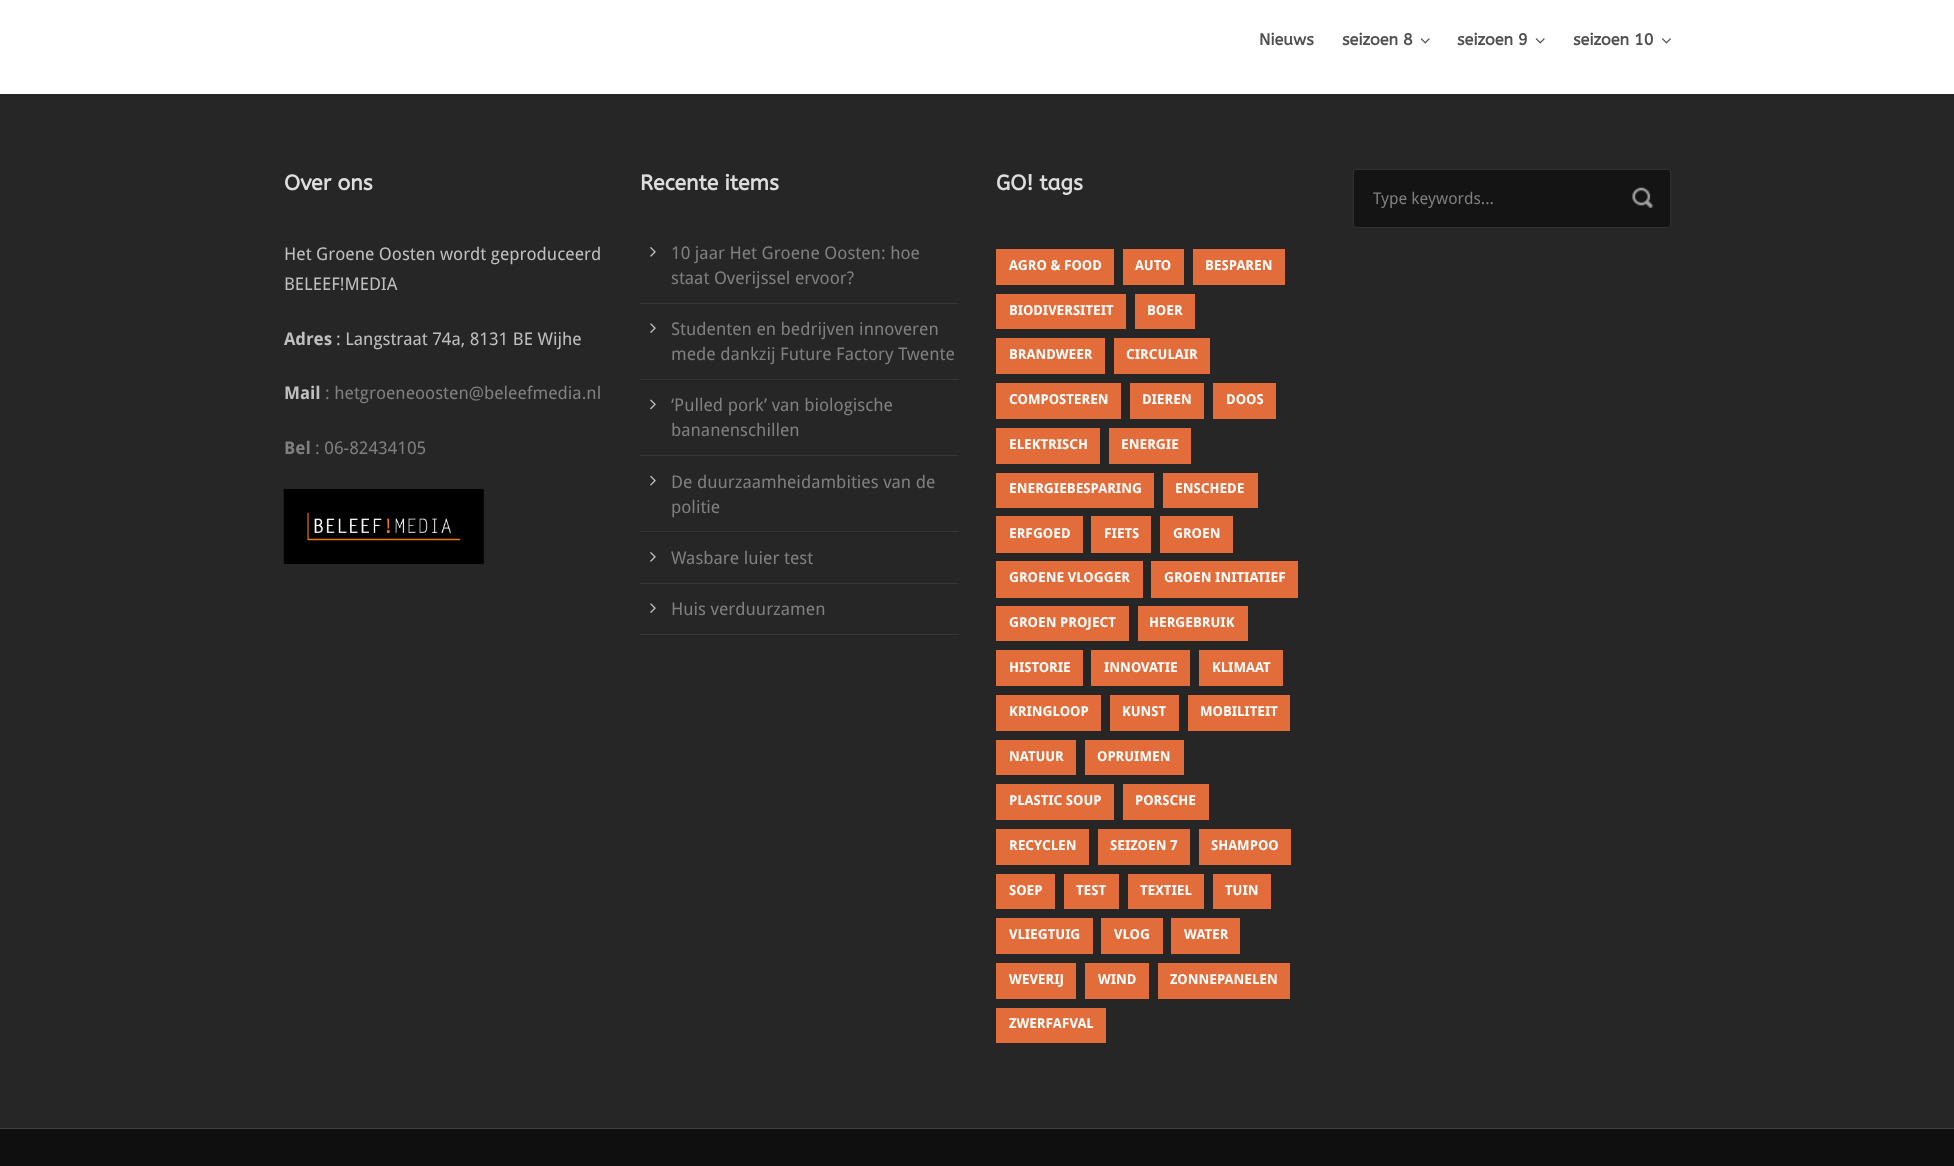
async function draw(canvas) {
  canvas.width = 1954;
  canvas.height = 1166;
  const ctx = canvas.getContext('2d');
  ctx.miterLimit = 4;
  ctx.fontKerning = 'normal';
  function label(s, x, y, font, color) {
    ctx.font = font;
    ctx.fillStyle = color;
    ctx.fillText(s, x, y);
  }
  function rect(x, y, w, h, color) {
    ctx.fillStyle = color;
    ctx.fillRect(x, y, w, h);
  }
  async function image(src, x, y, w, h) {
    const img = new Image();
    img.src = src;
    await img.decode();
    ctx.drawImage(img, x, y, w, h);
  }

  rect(0, 0, 1954, 1166, '#fff');
  label('Nieuws', 1259, 45, 'bold 16.25px ABeeZee', '#4f4f4f');
  label('seizoen 8', 1342, 45, 'bold 16.25px ABeeZee', '#4f4f4f');
  await image('assets/img1.png', 1420, 38, 10, 6);
  label('seizoen 9', 1457, 45, 'bold 16.25px ABeeZee', '#4f4f4f');
  await image('assets/img1.png', 1535, 38, 10, 6);
  label('seizoen 10', 1573, 45, 'bold 16.25px ABeeZee', '#4f4f4f');
  await image('assets/img2.png', 1662, 38, 9, 6);
  rect(0, 94, 1954, 1034, '#262626');
  label('Over ons', 284, 190, 'bold 21.25px ABeeZee', '#ddd');
  label('Het Groene Oosten wordt geproduceerd', 284, 260, '17.5px Droid Sans', '#bfbfbf');
  label('BELEEF!MEDIA', 284, 290, '17.5px Droid Sans', '#bfbfbf');
  label('Adres', 284, 345, 'bold 17.5px Droid Sans', '#bfbfbf');
  label(': Langstraat 74a, 8131 BE Wijhe', 336, 345, '17.5px Droid Sans', '#bfbfbf');
  label('Mail', 284, 399, 'bold 17.5px Droid Sans', '#bfbfbf');
  label(': hetgroeneoosten@beleefmedia.nl', 325, 399, '17.5px Droid Sans', '#7f7f7f');
  label('Bel', 284, 454, 'bold 17.5px Droid Sans', '#7f7f7f');
  label(': 06-82434105', 315, 454, '17.5px Droid Sans', '#7f7f7f');
  await image('assets/img3.png', 283, 489, 201, 75);
  label('Recente items', 640, 190, 'bold 21.25px ABeeZee', '#ddd');
  rect(640, 303, 319, 1, '#363636');
  await image('assets/img4.png', 650, 247, 6, 10);
  label('10 jaar Het Groene Oosten: hoe', 671, 259, '17.5px Droid Sans', '#7f7f7f');
  label('staat Overijssel ervoor?', 671, 284, '17.5px Droid Sans', '#7f7f7f');
  rect(640, 379, 319, 1, '#363636');
  await image('assets/img5.png', 650, 323, 6, 10);
  label('Studenten en bedrijven innoveren', 671, 335, '17.5px Droid Sans', '#7f7f7f');
  label('mede dankzij Future Factory Twente', 671, 360, '17.5px Droid Sans', '#7f7f7f');
  rect(640, 455, 319, 1, '#363636');
  await image('assets/img6.png', 650, 399, 6, 11);
  label('‘Pulled pork’ van biologische', 671, 411, '17.5px Droid Sans', '#7f7f7f');
  label('bananenschillen', 671, 436, '17.5px Droid Sans', '#7f7f7f');
  rect(640, 531, 319, 1, '#363636');
  await image('assets/img7.png', 650, 475, 6, 11);
  label('De duurzaamheidambities van de', 671, 488, '17.5px Droid Sans', '#7f7f7f');
  label('politie', 671, 513, '17.5px Droid Sans', '#7f7f7f');
  rect(640, 583, 319, 1, '#363636');
  await image('assets/img4.png', 650, 552, 6, 10);
  label('Wasbare luier test', 671, 564, '17.5px Droid Sans', '#7f7f7f');
  rect(640, 634, 319, 1, '#363636');
  await image('assets/img5.png', 650, 603, 6, 10);
  label('Huis verduurzamen', 671, 615, '17.5px Droid Sans', '#7f7f7f');
  label('GO! tags', 996, 190, 'bold 21.25px ABeeZee', '#ddd');
  rect(996, 249, 118, 36, '#e36d3a');
  label('AGRO & FOOD', 1009, 270, 'bold 13.75px Droid Sans', '#fff');
  rect(1123, 249, 61, 36, '#e36d3a');
  label('AUTO', 1135, 270, 'bold 13.75px Droid Sans', '#fff');
  rect(1193, 249, 92, 36, '#e36d3a');
  label('BESPAREN', 1205, 270, 'bold 13.75px Droid Sans', '#fff');
  rect(996, 294, 130, 35, '#e36d3a');
  label('BIODIVERSITEIT', 1009, 315, 'bold 13.75px Droid Sans', '#fff');
  rect(1135, 294, 60, 35, '#e36d3a');
  label('BOER', 1147, 315, 'bold 13.75px Droid Sans', '#fff');
  rect(996, 338, 109, 36, '#e36d3a');
  label('BRANDWEER', 1009, 359, 'bold 13.75px Droid Sans', '#fff');
  rect(1114, 338, 96, 36, '#e36d3a');
  label('CIRCULAIR', 1126, 359, 'bold 13.75px Droid Sans', '#fff');
  rect(996, 383, 125, 36, '#e36d3a');
  label('COMPOSTEREN', 1009, 404, 'bold 13.75px Droid Sans', '#fff');
  rect(1130, 383, 74, 36, '#e36d3a');
  label('DIEREN', 1142, 404, 'bold 13.75px Droid Sans', '#fff');
  rect(1213, 383, 63, 36, '#e36d3a');
  label('DOOS', 1226, 404, 'bold 13.75px Droid Sans', '#fff');
  rect(996, 428, 104, 36, '#e36d3a');
  label('ELEKTRISCH', 1009, 449, 'bold 13.75px Droid Sans', '#fff');
  rect(1109, 428, 82, 36, '#e36d3a');
  label('ENERGIE', 1121, 449, 'bold 13.75px Droid Sans', '#fff');
  rect(996, 473, 158, 35, '#e36d3a');
  label('ENERGIEBESPARING', 1009, 493, 'bold 13.75px Droid Sans', '#fff');
  rect(1163, 473, 95, 35, '#e36d3a');
  label('ENSCHEDE', 1175, 493, 'bold 13.75px Droid Sans', '#fff');
  rect(996, 516, 87, 37, '#e36d3a');
  label('ERFGOED', 1009, 538, 'bold 13.75px Droid Sans', '#fff');
  rect(1091, 516, 60, 37, '#e36d3a');
  label('FIETS', 1104, 538, 'bold 13.75px Droid Sans', '#fff');
  rect(1160, 516, 73, 37, '#e36d3a');
  label('GROEN', 1173, 538, 'bold 13.75px Droid Sans', '#fff');
  rect(996, 561, 147, 37, '#e36d3a');
  label('GROENE VLOGGER', 1009, 582, 'bold 13.75px Droid Sans', '#fff');
  rect(1151, 561, 147, 37, '#e36d3a');
  label('GROEN INITIATIEF', 1164, 582, 'bold 13.75px Droid Sans', '#fff');
  rect(996, 606, 133, 35, '#e36d3a');
  label('GROEN PROJECT', 1009, 627, 'bold 13.75px Droid Sans', '#fff');
  rect(1138, 606, 110, 35, '#e36d3a');
  label('HERGEBRUIK', 1149, 627, 'bold 13.75px Droid Sans', '#fff');
  rect(996, 650, 87, 36, '#e36d3a');
  label('HISTORIE', 1009, 672, 'bold 13.75px Droid Sans', '#fff');
  rect(1091, 650, 99, 36, '#e36d3a');
  label('INNOVATIE', 1104, 672, 'bold 13.75px Droid Sans', '#fff');
  rect(1199, 650, 84, 36, '#e36d3a');
  label('KLIMAAT', 1212, 672, 'bold 13.75px Droid Sans', '#fff');
  rect(996, 695, 105, 36, '#e36d3a');
  label('KRINGLOOP', 1009, 716, 'bold 13.75px Droid Sans', '#fff');
  rect(1110, 695, 69, 36, '#e36d3a');
  label('KUNST', 1122, 716, 'bold 13.75px Droid Sans', '#fff');
  rect(1188, 695, 102, 36, '#e36d3a');
  label('MOBILITEIT', 1200, 716, 'bold 13.75px Droid Sans', '#fff');
  rect(996, 740, 80, 35, '#e36d3a');
  label('NATUUR', 1009, 761, 'bold 13.75px Droid Sans', '#fff');
  rect(1085, 740, 99, 35, '#e36d3a');
  label('OPRUIMEN', 1097, 761, 'bold 13.75px Droid Sans', '#fff');
  rect(996, 784, 118, 36, '#e36d3a');
  label('PLASTIC SOUP', 1009, 805, 'bold 13.75px Droid Sans', '#fff');
  rect(1123, 784, 86, 36, '#e36d3a');
  label('PORSCHE', 1135, 805, 'bold 13.75px Droid Sans', '#fff');
  rect(996, 829, 93, 36, '#e36d3a');
  label('RECYCLEN', 1009, 850, 'bold 13.75px Droid Sans', '#fff');
  rect(1098, 829, 92, 36, '#e36d3a');
  label('SEIZOEN 7', 1110, 850, 'bold 13.75px Droid Sans', '#fff');
  rect(1199, 829, 92, 36, '#e36d3a');
  label('SHAMPOO', 1211, 850, 'bold 13.75px Droid Sans', '#fff');
  rect(996, 874, 59, 35, '#e36d3a');
  label('SOEP', 1009, 895, 'bold 13.75px Droid Sans', '#fff');
  rect(1064, 874, 55, 35, '#e36d3a');
  label('TEST', 1076, 895, 'bold 13.75px Droid Sans', '#fff');
  rect(1128, 874, 76, 35, '#e36d3a');
  label('TEXTIEL', 1140, 895, 'bold 13.75px Droid Sans', '#fff');
  rect(1213, 874, 58, 35, '#e36d3a');
  label('TUIN', 1225, 895, 'bold 13.75px Droid Sans', '#fff');
  rect(996, 918, 97, 36, '#e36d3a');
  label('VLIEGTUIG', 1009, 939, 'bold 13.75px Droid Sans', '#fff');
  rect(1101, 918, 62, 36, '#e36d3a');
  label('VLOG', 1114, 939, 'bold 13.75px Droid Sans', '#fff');
  rect(1171, 918, 69, 36, '#e36d3a');
  label('WATER', 1184, 939, 'bold 13.75px Droid Sans', '#fff');
  rect(996, 963, 80, 36, '#e36d3a');
  label('WEVERIJ', 1009, 984, 'bold 13.75px Droid Sans', '#fff');
  rect(1085, 963, 64, 36, '#e36d3a');
  label('WIND', 1098, 984, 'bold 13.75px Droid Sans', '#fff');
  rect(1158, 963, 132, 36, '#e36d3a');
  label('ZONNEPANELEN', 1170, 984, 'bold 13.75px Droid Sans', '#fff');
  rect(996, 1008, 110, 35, '#e36d3a');
  label('ZWERFAFVAL', 1009, 1028, 'bold 13.75px Droid Sans', '#fff');
  ctx.fillStyle = '#141414';
  ctx.beginPath();
  ctx.roundRect(1353.5, 169.5, 317, 58, 3.5);
  ctx.fill();
  ctx.strokeStyle = '#313131';
  ctx.stroke();
  label('Type keywords...', 1373, 204, '16.25px Droid Sans', '#7f7f7f');
  await image('assets/img8.png', 1632, 187, 21, 21);
  rect(0, 1129, 1954, 37, '#0f0f0f');
  rect(0, 1128, 1954, 1, '#3f3f3f');
}

draw(document.querySelector('canvas'));
